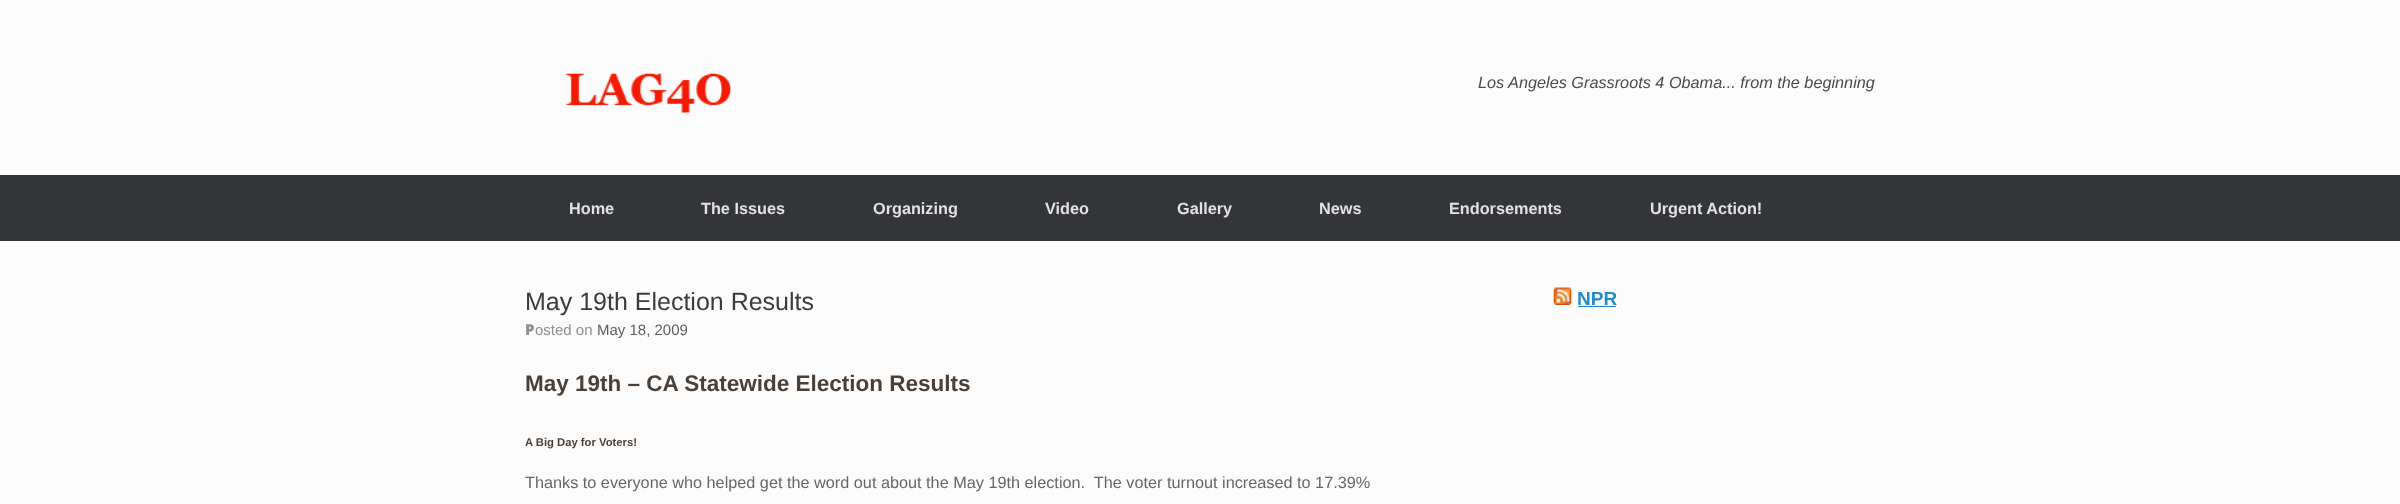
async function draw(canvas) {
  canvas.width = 2400;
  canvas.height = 504;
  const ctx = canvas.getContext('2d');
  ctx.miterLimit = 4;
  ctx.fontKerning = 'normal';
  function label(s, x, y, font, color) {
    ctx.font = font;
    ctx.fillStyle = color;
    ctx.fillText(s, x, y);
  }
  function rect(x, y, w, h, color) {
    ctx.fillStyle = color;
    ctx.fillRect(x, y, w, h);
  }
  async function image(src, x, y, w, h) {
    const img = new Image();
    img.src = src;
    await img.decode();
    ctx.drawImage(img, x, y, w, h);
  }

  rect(0, 0, 2400, 504, '#fcfcfc');
  await image('assets/img1.png', 566, 73, 166, 40);
  label('Los Angeles Grassroots 4 Obama... from the beginning', 1478, 88, 'italic 16.25px Liberation Sans', '#4b4b4b');
  rect(0, 175, 2400, 66, '#343538');
  label('Home', 569, 214, 'bold 16.25px Liberation Sans', '#e2e2e2');
  label('The Issues', 701, 214, 'bold 16.25px Liberation Sans', '#e2e2e2');
  label('Organizing', 873, 214, 'bold 16.25px Liberation Sans', '#e2e2e2');
  label('Video', 1045, 214, 'bold 16.25px Liberation Sans', '#e2e2e2');
  label('Gallery', 1177, 214, 'bold 16.25px Liberation Sans', '#e2e2e2');
  label('News', 1319, 214, 'bold 16.25px Liberation Sans', '#e2e2e2');
  label('Endorsements', 1449, 214, 'bold 16.25px Liberation Sans', '#e2e2e2');
  label('Urgent Action!', 1650, 214, 'bold 16.25px Liberation Sans', '#e2e2e2');
  label('May 19th Election Results', 525, 310, '25px Liberation Sans', '#3b3b3b');
  label('P', 525, 335, '900 15px Noto Sans', '#8f8f8f');
  label('osted on', 535, 335, '15px Liberation Sans', '#8f8f8f');
  label('May 18, 2009', 597, 335, '15px Liberation Sans', '#5e5e5e');
  label('May 19th – CA Statewide Election Results', 525, 391, 'bold 22.5px Liberation Sans', '#4c3f36');
  label('A Big Day for Voters!', 525, 446, 'bold 11.25px Liberation Sans', '#4c3f36');
  label('Thanks to everyone who helped get the word out about the May 19th election.  The voter turnout increased to 17.39%', 525, 488, '16.25px Liberation Sans', '#666');
  await image('assets/img2.png', 1553, 287, 19, 18);
  label('NPR', 1577, 305, 'bold 19px Liberation Sans', '#248cc8');
  rect(1578, 306, 38, 1, '#248cc8');
}

draw(document.querySelector('canvas'));
